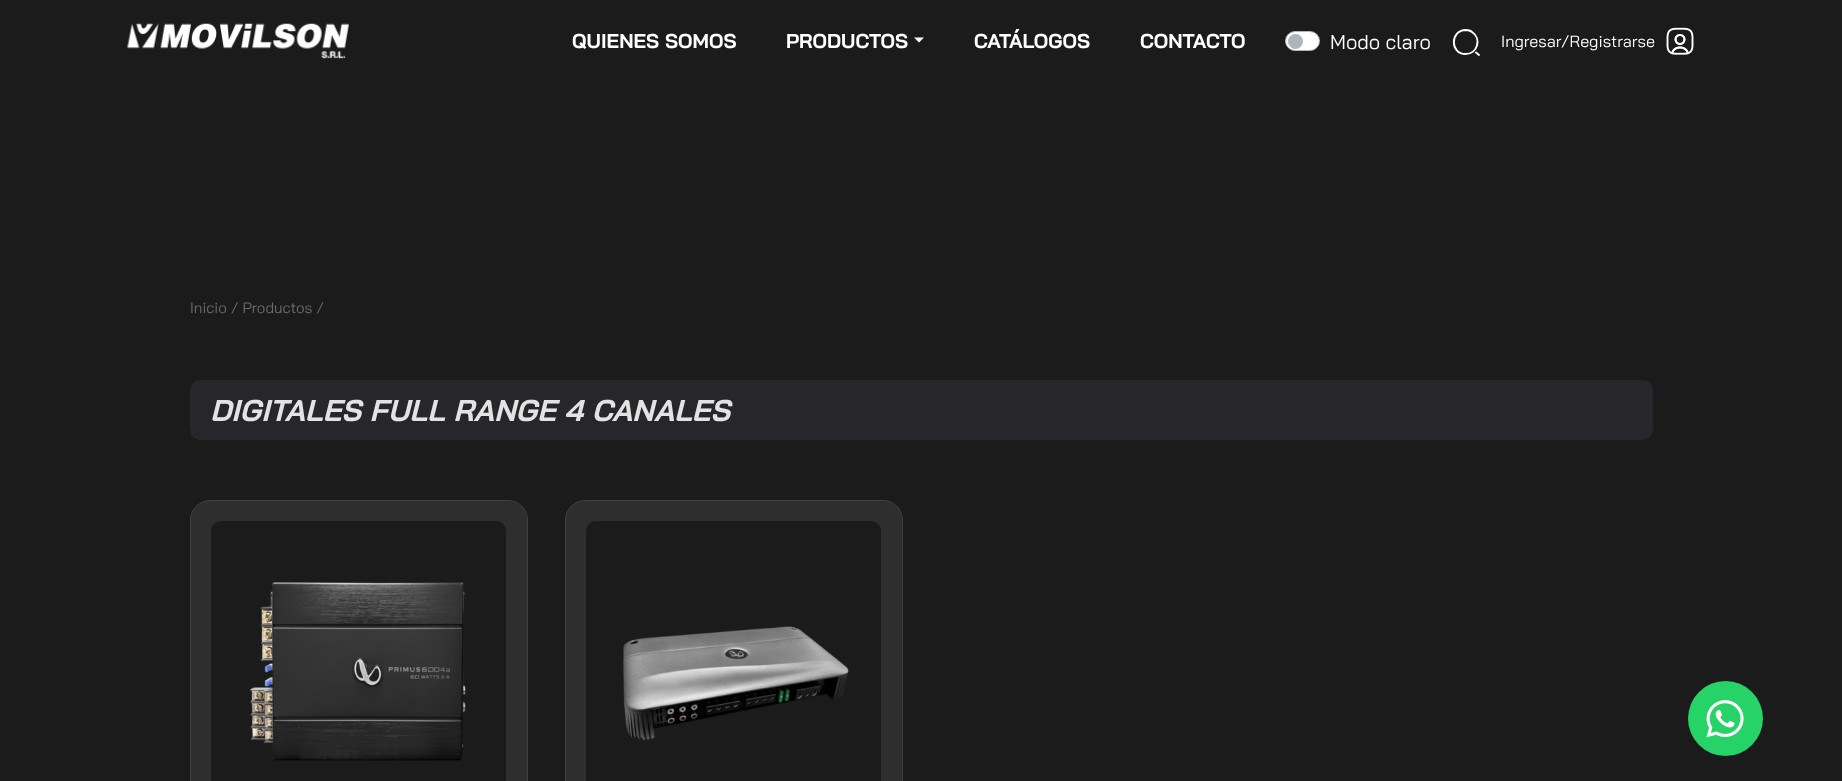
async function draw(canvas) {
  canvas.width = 1842;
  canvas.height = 781;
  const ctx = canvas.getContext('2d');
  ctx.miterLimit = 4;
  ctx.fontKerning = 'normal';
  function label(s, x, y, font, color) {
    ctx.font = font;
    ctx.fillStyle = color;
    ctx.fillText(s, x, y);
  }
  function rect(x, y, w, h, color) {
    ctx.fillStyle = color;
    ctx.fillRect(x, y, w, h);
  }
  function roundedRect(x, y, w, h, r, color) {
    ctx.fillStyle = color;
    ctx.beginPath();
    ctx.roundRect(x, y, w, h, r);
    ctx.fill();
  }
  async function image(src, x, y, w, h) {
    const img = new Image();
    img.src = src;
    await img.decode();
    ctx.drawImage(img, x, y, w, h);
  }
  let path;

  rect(0, 0, 1842, 781, '#1b1b1b');
  await image('assets/img1.png', 127, 23, 222, 36);
  label('QUIENES SOMOS', 572, 48, 'bold 20px Bai Jamjuree', '#fff');
  label('PRODUCTOS', 786, 48, 'bold 20px Bai Jamjuree', '#fff');
  path = new Path2D('M914 37.5H924L919 42.5Z');
  ctx.fill(path);
  label('CATÁLOGOS', 974, 48, 'bold 20px Bai Jamjuree', '#fff');
  label('CONTACTO', 1140, 48, 'bold 20px Bai Jamjuree', '#fff');
  ctx.beginPath();
  ctx.roundRect(1285.5, 31.5, 34, 19, 9.5);
  ctx.fill();
  ctx.strokeStyle = '#adb5bd';
  ctx.stroke();
  ctx.fillStyle = '#adb5bd';
  ctx.beginPath();
  ctx.arc(1295.5, 41.5, 7.5, 0, 2 * Math.PI);
  ctx.fill();
  label('Modo claro', 1330, 49, '20px Bai Jamjuree', '#fff');
  path = new Path2D('M1479 55L1476 52.5M1465.5 54C1477.5 54 1482 38.5 1472 32C1470.5 30.5 1468 30 1465.5 30C1450 30.5 1450 54 1465.5 54Z');
  ctx.strokeStyle = '#fff';
  ctx.lineWidth = 1.9;
  ctx.lineCap = 'round';
  ctx.lineJoin = 'round';
  ctx.stroke(path);
  label('Ingresar/Registrarse', 1501, 47, '16.25px Bai Jamjuree', '#fff');
  await image('assets/img2.png', 1666, 27, 28, 28);
  label('Inicio / Productos /', 190, 313, '15px Bai Jamjuree', '#6d6d6d');
  roundedRect(190, 380, 1463, 60, 10, '#27272b');
  label('DIGITALES FULL RANGE 4 CANALES', 210, 421, 'italic bold 30px Bai Jamjuree', '#e3e3e3');
  ctx.fillStyle = '#2e2e2e';
  ctx.beginPath();
  ctx.roundRect(190.5, 500.5, 337, 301, 19.5);
  ctx.fill();
  ctx.strokeStyle = '#404040';
  ctx.lineWidth = 1;
  ctx.lineJoin = 'miter';
  ctx.stroke();
  roundedRect(211, 521, 295, 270, 10, '#1b1b1b');
  await image('assets/img3.png', 250, 582, 216, 179);
  ctx.fillStyle = '#2e2e2e';
  ctx.beginPath();
  ctx.roundRect(565.5, 500.5, 337, 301, 19.5);
  ctx.fill();
  ctx.stroke();
  roundedRect(586, 521, 295, 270, 10, '#1b1b1b');
  await image('assets/img4.png', 622, 626, 227, 115);
  ctx.fillStyle = '#25d366';
  ctx.beginPath();
  ctx.arc(1725.5, 718.5, 37.5, 0, 2 * Math.PI);
  ctx.fill();
  await image('assets/img5.png', 1706, 700, 38, 38);
}

draw(document.querySelector('canvas'));
